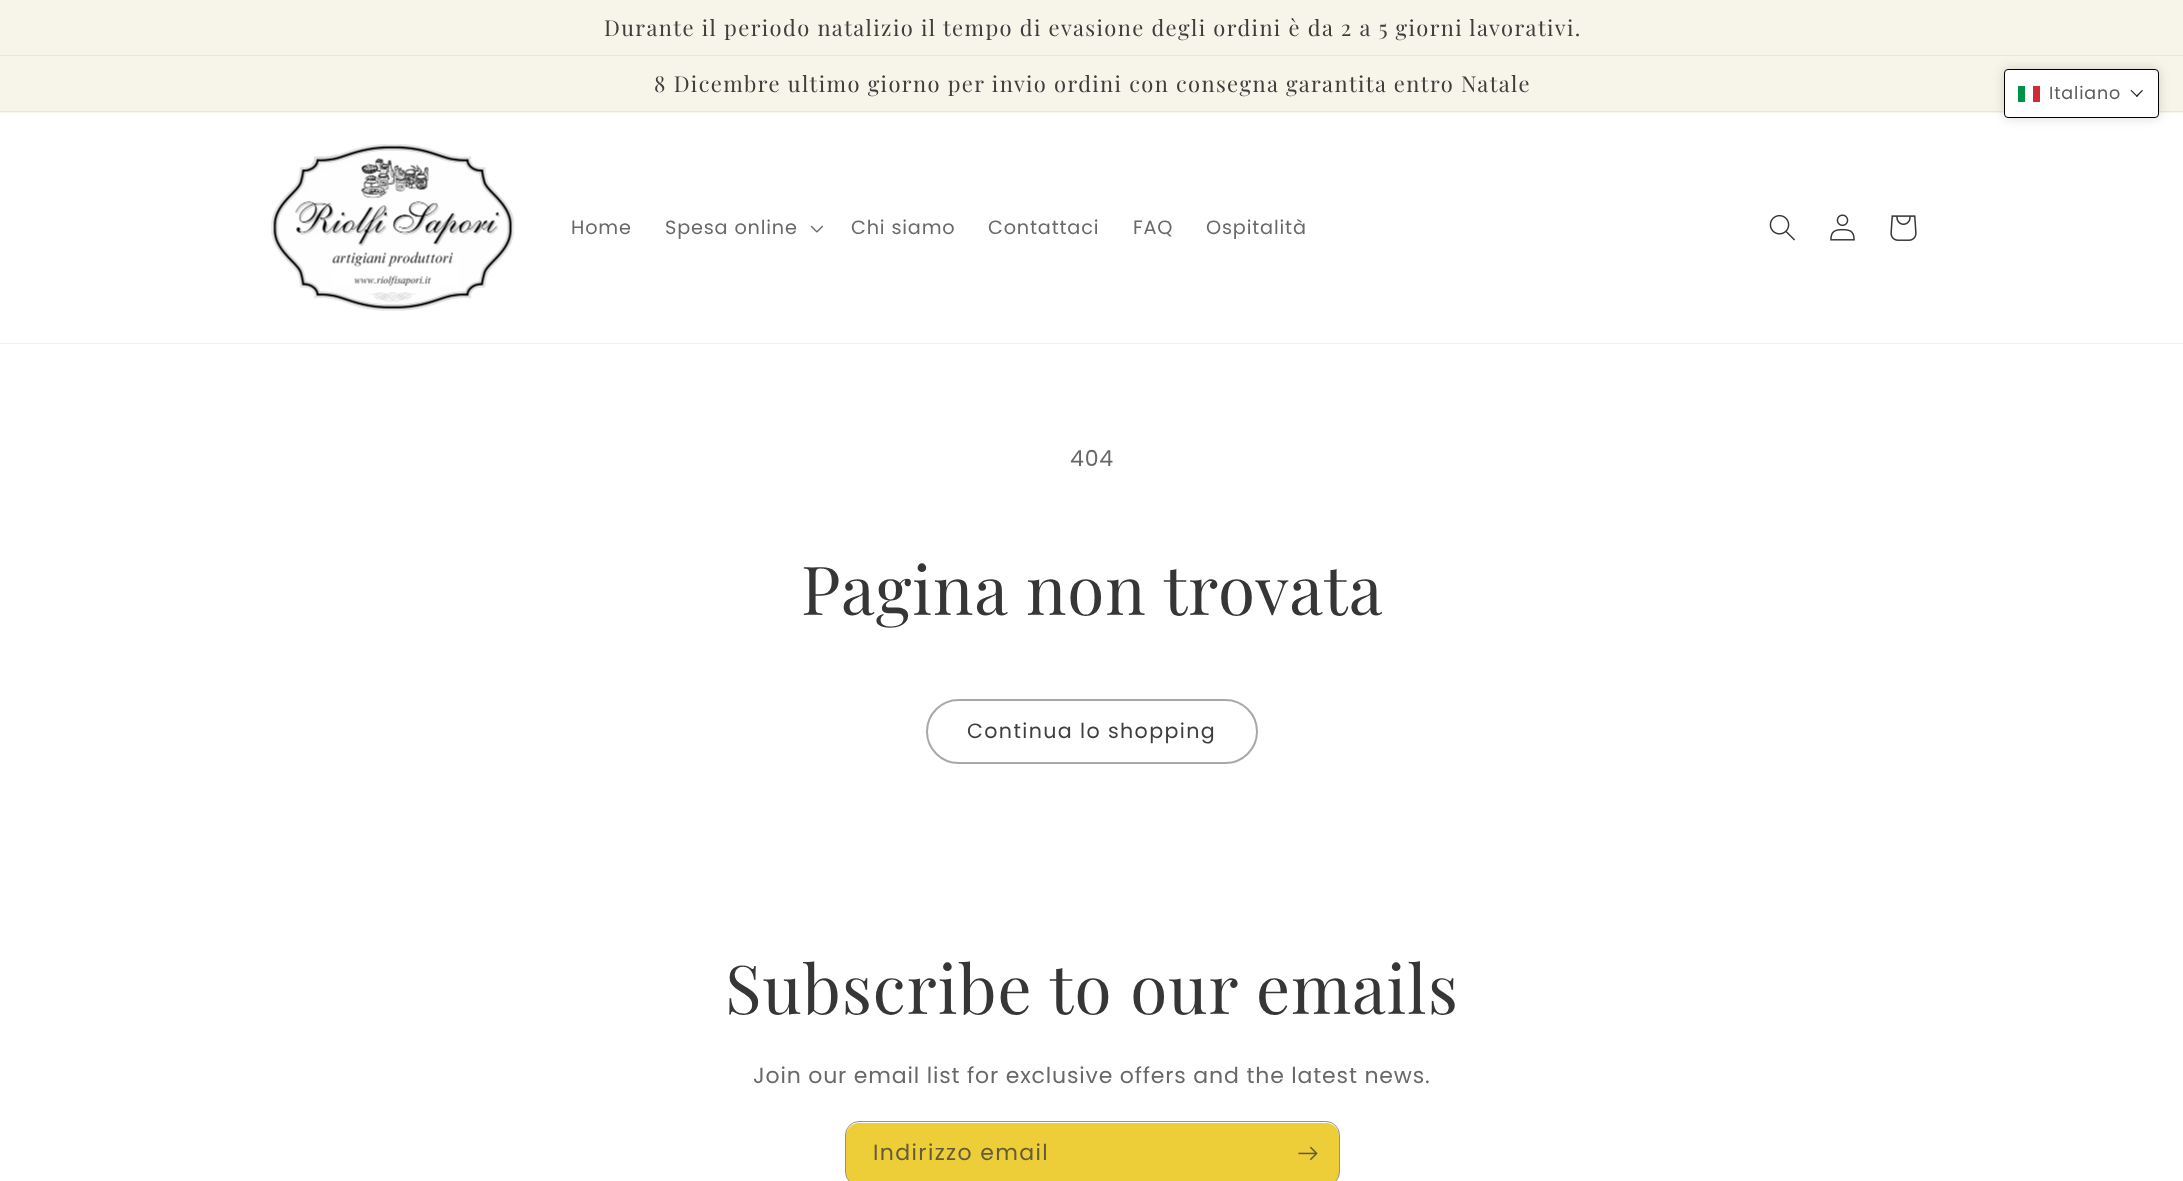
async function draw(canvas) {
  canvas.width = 2183;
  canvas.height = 1181;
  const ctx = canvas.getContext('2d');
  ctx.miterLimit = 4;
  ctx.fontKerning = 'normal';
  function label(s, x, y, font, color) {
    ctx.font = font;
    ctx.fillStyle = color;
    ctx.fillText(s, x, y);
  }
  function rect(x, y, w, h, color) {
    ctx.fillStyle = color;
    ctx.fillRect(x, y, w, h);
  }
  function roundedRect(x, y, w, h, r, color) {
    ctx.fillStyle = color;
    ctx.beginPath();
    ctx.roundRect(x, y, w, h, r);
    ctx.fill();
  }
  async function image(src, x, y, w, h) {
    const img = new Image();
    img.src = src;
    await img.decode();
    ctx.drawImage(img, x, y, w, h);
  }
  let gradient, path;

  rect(0, 0, 2183, 1181, '#fff');
  gradient = ctx.createLinearGradient(1092, 0, 1092, 1181);
  gradient.addColorStop(0, '#f7f5ea');
  gradient.addColorStop(0.97, '#f7f5ea');
  gradient.addColorStop(1, '#a8fffb');
  ctx.fillStyle = gradient;
  ctx.fillRect(0, 0, 2183, 55);
  rect(0, 55, 2183, 1, '#e8e6dc');
  ctx.letterSpacing = '1.38px';
  label('Durante il periodo natalizio il tempo di evasione degli ordini è da 2 a 5 giorni lavorativi.', 604, 36, '21.95px Playfair Display', '#403d3d');
  gradient = ctx.createLinearGradient(1092, 0, 1092, 1181);
  gradient.addColorStop(0, '#f7f5ea');
  gradient.addColorStop(0.97, '#f7f5ea');
  gradient.addColorStop(1, '#a8fffb');
  ctx.fillStyle = gradient;
  ctx.fillRect(0, 56, 2183, 57);
  rect(0, 111, 2183, 1, '#e8e6dc');
  label('8 Dicembre ultimo giorno per invio ordini con consegna garantita entro Natale', 654, 92, '21.95px Playfair Display', '#403d3d');
  ctx.fillStyle = '#00000026';
  ctx.filter = 'blur(6px)';
  ctx.beginPath();
  ctx.roundRect(2004, 69, 155, 49, 4);
  ctx.fill();
  ctx.filter = 'none';
  ctx.fillStyle = '#fff';
  ctx.beginPath();
  ctx.roundRect(2004.5, 69.5, 154, 48, 3.5);
  ctx.fill();
  ctx.strokeStyle = '#000';
  ctx.stroke();
  rect(2018, 86, 7, 16, '#009246');
  rect(2033, 86, 7, 16, '#ce2b37');
  ctx.letterSpacing = '0.83px';
  label('Italiano', 2049, 99, '17.5px Poppins', '#5c5c5c');
  ctx.fillStyle = '#1a1a1a';
  path = new Path2D('M2142 90L2143 90.5L2137 97L2136 96Z');
  ctx.fill(path);
  path = new Path2D('M2131.5 90L2137.5 96L2137 97L2130.5 90.5Z');
  ctx.fill(path);
  rect(0, 343, 2183, 1, '#efefef');
  await image('assets/img1.png', 271, 144, 244, 167);
  label('Home', 571, 234, '19.25px Poppins', '#686868');
  label('Spesa online', 665, 234, '19.25px Poppins', '#686868');
  await image('assets/img2.png', 810, 225, 13, 8);
  label('Chi siamo', 851, 234, '19.25px Poppins', '#686868');
  label('Contattaci', 988, 234, '19.25px Poppins', '#686868');
  label('FAQ', 1133, 234, '19.25px Poppins', '#686868');
  label('Ospitalità', 1206, 234, '19.25px Poppins', '#686868');
  await image('assets/img3.png', 1769, 214, 26, 27);
  await image('assets/img4.png', 1830, 214, 25, 27);
  await image('assets/img5.png', 1890, 215, 27, 26);
  label('404', 1070, 466, '22px Poppins', '#686868');
  ctx.letterSpacing = '1px';
  label('Pagina non trovata', 801, 615, '67.5px Playfair Display', '#363636');
  ctx.beginPath();
  ctx.roundRect(927, 700, 330, 63, 31.5);
  ctx.strokeStyle = '#a9a8a8';
  ctx.lineWidth = 2;
  ctx.stroke();
  ctx.letterSpacing = '1.38px';
  label('Continua lo shopping', 967, 738, '20.6px Poppins', '#403d3d');
  ctx.letterSpacing = '1px';
  label('Subscribe to our emails', 725, 1014, '67.5px Playfair Display', '#363636');
  ctx.letterSpacing = '0.83px';
  label('Join our email list for exclusive offers and the latest news.', 753, 1083, '22px Poppins', '#686868');
  roundedRect(846, 1123, 493, 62, 13, '#eece38');
  ctx.beginPath();
  ctx.roundRect(845.5, 1121.5, 494, 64, 13.5);
  ctx.strokeStyle = '#3636368c';
  ctx.lineWidth = 1;
  ctx.stroke();
  ctx.letterSpacing = '1.38px';
  label('Indirizzo email', 873, 1160, '22px Poppins', '#645c37');
  await image('assets/img6.png', 1298, 1146, 20, 14);
}

draw(document.querySelector('canvas'));
